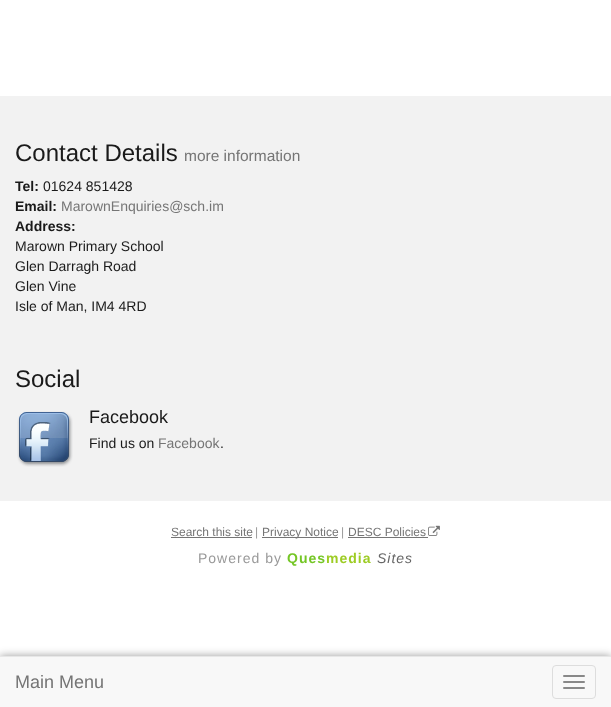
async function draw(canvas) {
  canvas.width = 611;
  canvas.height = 707;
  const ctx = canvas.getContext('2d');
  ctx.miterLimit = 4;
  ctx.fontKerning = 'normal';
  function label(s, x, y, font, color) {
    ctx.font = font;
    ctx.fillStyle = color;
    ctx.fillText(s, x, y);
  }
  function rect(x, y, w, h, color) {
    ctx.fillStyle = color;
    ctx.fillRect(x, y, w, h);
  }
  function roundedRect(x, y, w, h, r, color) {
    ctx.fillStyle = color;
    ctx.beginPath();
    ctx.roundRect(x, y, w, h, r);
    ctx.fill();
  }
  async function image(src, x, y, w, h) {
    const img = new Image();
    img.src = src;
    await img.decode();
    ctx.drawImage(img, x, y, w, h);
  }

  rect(0, 0, 611, 707, '#fff');
  rect(0, 96, 611, 405, '#f2f2f2');
  label('Contact Details', 15, 161, '24px Liberation Sans', '#1a1a1a');
  label('more information', 184, 161, '15.5px Liberation Sans', '#757575');
  label('Tel:', 15, 191, 'bold 14px Liberation Sans', '#1a1a1a');
  label('01624 851428', 43, 191, '14px Liberation Sans', '#1a1a1a');
  label('Email:', 15, 211, 'bold 14px Liberation Sans', '#1a1a1a');
  label('MarownEnquiries@sch.im', 61, 211, '14px Liberation Sans', '#757575');
  label('Address:', 15, 231, 'bold 14px Liberation Sans', '#1a1a1a');
  label('Marown Primary School', 15, 251, '14px Liberation Sans', '#1a1a1a');
  label('Glen Darragh Road', 15, 271, '14px Liberation Sans', '#1a1a1a');
  label('Glen Vine', 15, 291, '14px Liberation Sans', '#1a1a1a');
  label('Isle of Man, IM4 4RD', 15, 311, '14px Liberation Sans', '#1a1a1a');
  label('Social', 15, 387, '24px Liberation Sans', '#1a1a1a');
  await image('assets/img1.png', 17, 411, 56, 56);
  label('Facebook', 89, 423, '18px Liberation Sans', '#1a1a1a');
  label('Find us on', 89, 448, '14px Liberation Sans', '#1a1a1a');
  label('Facebook', 158, 448, '14px Liberation Sans', '#757575');
  label('.', 220, 448, '14px Liberation Sans', '#1a1a1a');
  label('Search this site', 171, 536, '12px Liberation Sans', '#757575');
  rect(171, 537, 81, 1, '#757575');
  label('|', 255, 536, '12px Liberation Sans', '#999');
  rect(262, 537, 76, 1, '#757575');
  label('Privacy Notice', 262, 536, '12px Liberation Sans', '#757575');
  label('|', 341, 536, '12px Liberation Sans', '#999');
  label('DESC Policies', 348, 536, '12px Liberation Sans', '#757575');
  rect(348, 537, 80, 1, '#757575');
  await image('assets/img2.png', 428, 525, 12, 11);
  ctx.letterSpacing = '1px';
  label('Powered by', 198, 563, '14px Liberation Sans', '#999');
  label('Ques', 287, 563, 'bold 14px Liberation Sans', '#74c625');
  label('media', 326, 563, 'bold 14px Liberation Sans', '#9dcc24');
  label('Sites', 377, 563, 'italic 14px Liberation Sans', '#666');
  ctx.fillStyle = '#00000066';
  ctx.filter = 'blur(4px)';
  ctx.beginPath();
  ctx.rect(0, 656, 611, 51);
  ctx.fill();
  ctx.filter = 'none';
  rect(0, 657, 611, 50, '#f8f8f8');
  rect(0, 656, 611, 1, '#e7e7e7');
  ctx.letterSpacing = '0px';
  label('Main Menu', 15, 688, '18px Liberation Sans', '#757575');
  ctx.beginPath();
  ctx.roundRect(552.5, 665.5, 43, 33, 3.5);
  ctx.strokeStyle = '#ddd';
  ctx.stroke();
  roundedRect(563, 675, 22, 2, 1, '#888');
  roundedRect(563, 681, 22, 2, 1, '#888');
  roundedRect(563, 687, 22, 2, 1, '#888');
}

draw(document.querySelector('canvas'));
